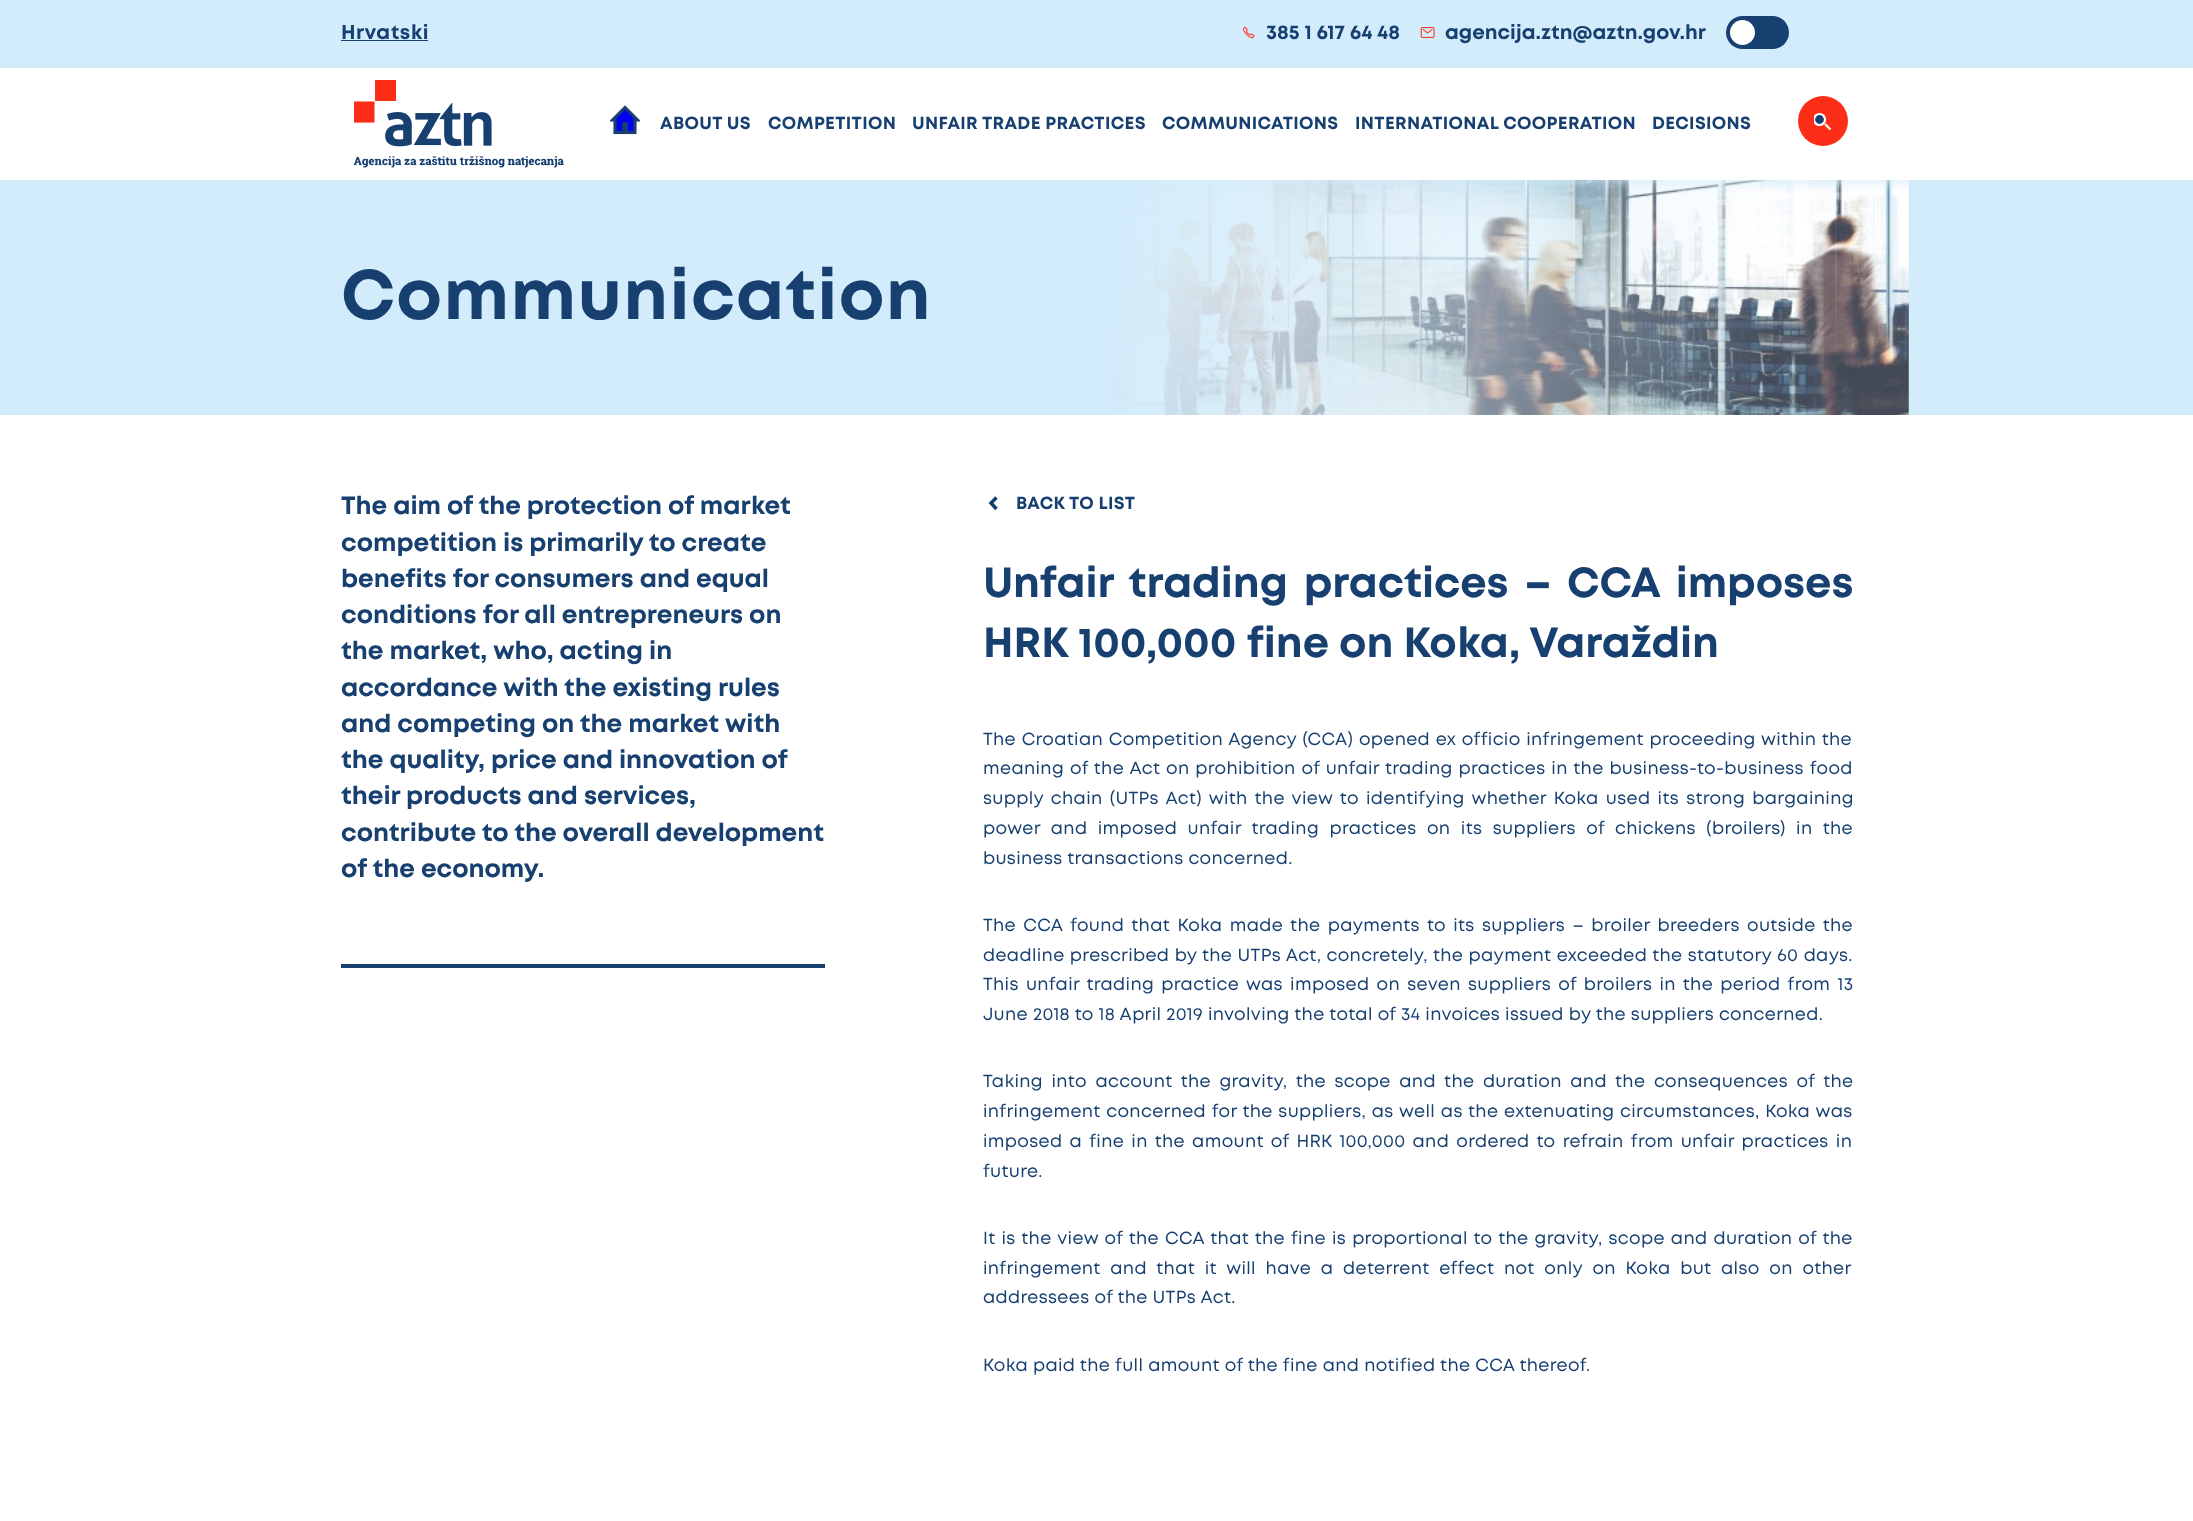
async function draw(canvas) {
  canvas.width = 2193;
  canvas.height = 1521;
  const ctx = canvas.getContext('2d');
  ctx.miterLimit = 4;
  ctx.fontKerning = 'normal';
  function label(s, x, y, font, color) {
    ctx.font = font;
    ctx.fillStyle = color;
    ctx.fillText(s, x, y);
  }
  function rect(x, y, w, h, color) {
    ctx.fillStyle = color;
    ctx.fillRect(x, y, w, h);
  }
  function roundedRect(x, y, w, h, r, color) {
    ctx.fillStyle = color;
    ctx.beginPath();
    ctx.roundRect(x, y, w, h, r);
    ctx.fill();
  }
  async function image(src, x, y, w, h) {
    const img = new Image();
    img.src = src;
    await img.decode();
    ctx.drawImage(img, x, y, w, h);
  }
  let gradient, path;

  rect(0, 0, 2193, 1521, '#fff');
  rect(0, 0, 2193, 68, '#d3ecfb');
  ctx.letterSpacing = '0.5px';
  label('Hrvatski', 341, 39, 'bold 20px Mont', '#174071');
  rect(341, 40, 87, 1, '#174071');
  await image('assets/img1.png', 1243, 26, 12, 13);
  ctx.letterSpacing = '0px';
  label('385 1 617 64 48', 1266, 39, 'bold 20px Mont', '#174071');
  await image('assets/img2.png', 1420, 27, 15, 11);
  label('agencija.ztn@aztn.gov.hr', 1445, 39, 'bold 20px Mont', '#174071');
  roundedRect(1726, 16, 63, 33, 16.5, '#174071');
  ctx.fillStyle = '#fff';
  ctx.beginPath();
  ctx.arc(1742.5, 32.5, 12.5, 0, 2 * Math.PI);
  ctx.fill();
  rect(0, 180, 2193, 235, '#d3ecfb');
  await image('assets/img5.png', 1103, 180, 806, 235);
  gradient = ctx.createLinearGradient(1048, 248, 1913, 344);
  gradient.addColorStop(0.08, '#d3ecfb');
  gradient.addColorStop(0.84, '#d3ecfb00');
  ctx.fillStyle = gradient;
  ctx.fillRect(1103, 180, 662, 235);
  ctx.fillStyle = '#d3ecfbcc';
  ctx.filter = 'blur(6px)';
  ctx.beginPath();
  ctx.rect(0, 70, 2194, 113);
  ctx.fill();
  ctx.filter = 'none';
  rect(0, 68, 2193, 112, '#fff');
  await image('assets/img3.png', 354, 80, 210, 88);
  await image('assets/img4.png', 610, 105, 30, 30);
  ctx.letterSpacing = '0.35px';
  label('ABOUT US', 660, 129, 'bold 17.5px Mont', '#174071');
  label('COMPETITION', 768, 129, 'bold 17.5px Mont', '#174071');
  label('UNFAIR TRADE PRACTICES', 912, 129, 'bold 17.5px Mont', '#174071');
  label('COMMUNICATIONS', 1162, 129, 'bold 17.5px Mont', '#174071');
  label('INTERNATIONAL COOPERATION', 1355, 129, 'bold 17.5px Mont', '#174071');
  label('DECISIONS', 1652, 129, 'bold 17.5px Mont', '#174071');
  ctx.fillStyle = '#fd2e17';
  ctx.beginPath();
  ctx.arc(1823, 121, 25, 0, 2 * Math.PI);
  ctx.fill();
  path = new Path2D('M1825 124L1830.5 129.5');
  ctx.strokeStyle = '#fff';
  ctx.lineWidth = 2.2;
  ctx.stroke(path);
  ctx.fillStyle = '#174071';
  ctx.beginPath();
  ctx.arc(1819.5, 119.5, 5.5, 0, 2 * Math.PI);
  ctx.fill();
  ctx.save();
  ctx.beginPath();
  ctx.rect(1814, 112, 18, 19);
  ctx.clip();
  ctx.beginPath();
  ctx.arc(1819.5, 119.5, 5.5, 0, 2 * Math.PI);
  ctx.stroke();
  ctx.restore();
  ctx.letterSpacing = '1.4px';
  label('Communication', 341, 319, 'bold 70px Mont', '#174071');
  rect(341, 964, 484, 4, '#174071');
  ctx.letterSpacing = '0px';
  label('The aim of the protection of market', 341, 514, 'bold 25px Mont', '#174071');
  label('competition is primarily to create', 341, 551, 'bold 25px Mont', '#174071');
  label('benefits for consumers and equal', 341, 587, 'bold 25px Mont', '#174071');
  label('conditions for all entrepreneurs on', 341, 623, 'bold 25px Mont', '#174071');
  label('the market, who, acting in', 341, 659, 'bold 25px Mont', '#174071');
  label('accordance with the existing rules', 341, 696, 'bold 25px Mont', '#174071');
  label('and competing on the market with', 341, 732, 'bold 25px Mont', '#174071');
  label('the quality, price and innovation of', 341, 768, 'bold 25px Mont', '#174071');
  label('their products and services,', 341, 804, 'bold 25px Mont', '#174071');
  label('contribute to the overall development', 341, 841, 'bold 25px Mont', '#174071');
  label('of the economy.', 341, 877, 'bold 25px Mont', '#174071');
  path = new Path2D('M996.5 497.5L991 503L996.5 509');
  ctx.strokeStyle = '#174071';
  ctx.lineWidth = 3.5;
  ctx.stroke(path);
  ctx.letterSpacing = '0.35px';
  label('BACK TO LIST', 1016, 509, 'bold 17.5px Mont', '#174071');
  ctx.letterSpacing = '0px';
  ctx.wordSpacing = '5.75px';
  label('Unfair trading practices – CCA imposes', 983, 597, 'bold 42px Mont', '#174071');
  ctx.wordSpacing = '0px';
  label('HRK 100,000 fine on Koka, Varaždin', 983, 657, 'bold 42px Mont', '#174071');
  ctx.letterSpacing = '0.35px';
  ctx.wordSpacing = '0.75px';
  label('The Croatian Competition Agency (CCA) opened ex officio infringement proceeding within the', 983, 745, '17.5px Mont', '#174071');
  ctx.wordSpacing = '0.9px';
  label('meaning of the Act on prohibition of unfair trading practices in the business-to-business food', 983, 774, '17.5px Mont', '#174071');
  ctx.wordSpacing = '2.25px';
  label('supply chain (UTPs Act) with the view to identifying whether Koka used its strong bargaining', 983, 804, '17.5px Mont', '#174071');
  ctx.wordSpacing = '5.5px';
  label('power and imposed unfair trading practices on its suppliers of chickens (broilers) in the', 983, 834, '17.5px Mont', '#174071');
  ctx.wordSpacing = '0px';
  label('business transactions concerned.', 983, 864, '17.5px Mont', '#174071');
  ctx.wordSpacing = '2.4px';
  label('The CCA found that Koka made the payments to its suppliers – broiler breeders outside the', 983, 931, '17.5px Mont', '#174071');
  ctx.wordSpacing = '0.4px';
  label('deadline prescribed by the UTPs Act, concretely, the payment exceeded the statutory 60 days.', 983, 961, '17.5px Mont', '#174071');
  ctx.wordSpacing = '2.25px';
  label('This unfair trading practice was imposed on seven suppliers of broilers in the period from 13', 983, 990, '17.5px Mont', '#174071');
  ctx.wordSpacing = '0px';
  label('June 2018 to 18 April 2019 involving the total of 34 invoices issued by the suppliers concerned.', 983, 1020, '17.5px Mont', '#174071');
  ctx.wordSpacing = '3.6px';
  label('Taking into account the gravity, the scope and the duration and the consequences of the', 983, 1087, '17.5px Mont', '#174071');
  ctx.wordSpacing = '0.75px';
  label('infringement concerned for the suppliers, as well as the extenuating circumstances, Koka was', 983, 1117, '17.5px Mont', '#174071');
  ctx.wordSpacing = '2.25px';
  label('imposed a fine in the amount of HRK 100,000 and ordered to refrain from unfair practices in', 983, 1147, '17.5px Mont', '#174071');
  ctx.wordSpacing = '0px';
  label('future.', 983, 1177, '17.5px Mont', '#174071');
  ctx.wordSpacing = '1.1px';
  label('It is the view of the CCA that the fine is proportional to the gravity, scope and duration of the', 983, 1244, '17.5px Mont', '#174071');
  ctx.wordSpacing = '4.75px';
  label('infringement and that it will have a deterrent effect not only on Koka but also on other', 983, 1274, '17.5px Mont', '#174071');
  ctx.wordSpacing = '0px';
  label('addressees of the UTPs Act.', 983, 1303, '17.5px Mont', '#174071');
  label('Koka paid the full amount of the fine and notified the CCA thereof.', 983, 1371, '17.5px Mont', '#174071');
}

draw(document.querySelector('canvas'));
